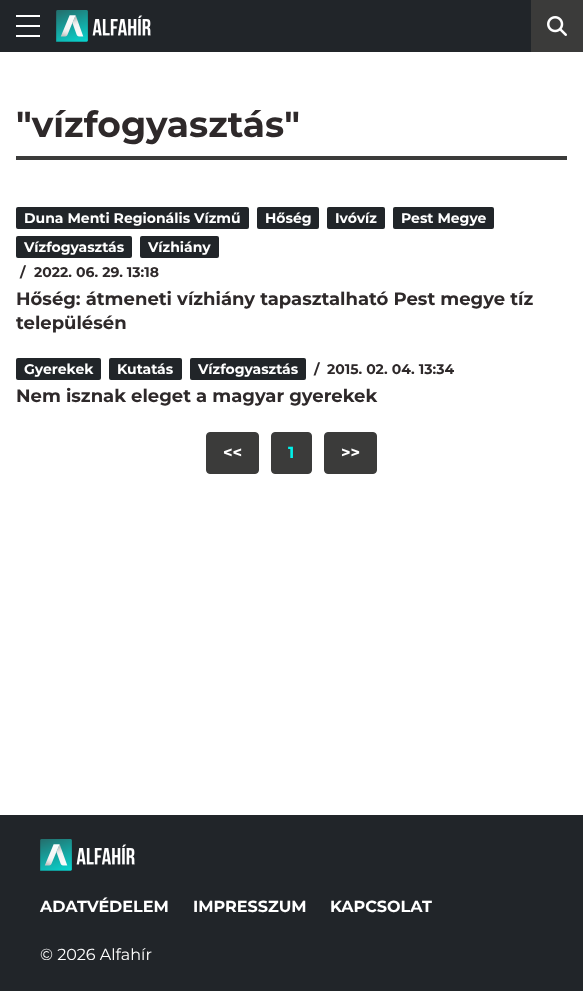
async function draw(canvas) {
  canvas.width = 583;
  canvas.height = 991;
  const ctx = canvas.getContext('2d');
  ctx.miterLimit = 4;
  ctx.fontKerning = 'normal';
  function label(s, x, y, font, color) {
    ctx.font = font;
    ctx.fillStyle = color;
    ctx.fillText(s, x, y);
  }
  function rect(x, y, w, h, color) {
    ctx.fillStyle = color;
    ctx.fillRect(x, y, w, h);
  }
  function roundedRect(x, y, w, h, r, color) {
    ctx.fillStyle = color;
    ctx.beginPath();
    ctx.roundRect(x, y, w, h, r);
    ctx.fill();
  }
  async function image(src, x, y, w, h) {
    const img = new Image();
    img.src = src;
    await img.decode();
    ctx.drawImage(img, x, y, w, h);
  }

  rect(0, 0, 583, 991, '#fff');
  rect(0, 0, 531, 52, '#212529');
  rect(16, 15, 24, 2, '#fff');
  rect(16, 25, 24, 2, '#fff');
  rect(16, 35, 24, 2, '#fff');
  await image('assets/img1.png', 56, 10, 95, 32);
  rect(531, 0, 52, 52, '#3b3b3a');
  await image('assets/img2.png', 547, 16, 20, 20);
  rect(16, 156, 551, 4, '#3b3b3a');
  label('"vízfogyasztás"', 16, 137, 'bold 36px Montserrat', '#2e292a');
  roundedRect(16, 207, 233, 22, 2, '#212529');
  label('Duna Menti Regionális Vízmű', 24, 223, 'bold 14px Montserrat', '#fff');
  roundedRect(257, 207, 62, 22, 2, '#212529');
  label('Hőség', 265, 223, 'bold 14px Montserrat', '#fff');
  roundedRect(327, 207, 58, 22, 2, '#212529');
  label('Ivóvíz', 335, 223, 'bold 14px Montserrat', '#fff');
  roundedRect(393, 207, 101, 22, 2, '#212529');
  label('Pest Megye', 401, 223, 'bold 14px Montserrat', '#fff');
  roundedRect(16, 236, 116, 22, 2, '#212529');
  label('Vízfogyasztás', 24, 252, 'bold 14px Montserrat', '#fff');
  roundedRect(140, 236, 79, 22, 2, '#212529');
  label('Vízhiány', 148, 252, 'bold 14px Montserrat', '#fff');
  label('/', 20, 277, 'bold 14px Montserrat', '#2e292a');
  label('2022. 06. 29. 13:18', 34, 277, 'bold 14px Montserrat', '#2e292a');
  label('Hőség: átmeneti vízhiány tapasztalható Pest megye tíz', 16, 305, 'bold 18px Montserrat', '#2e292a');
  label('településén', 16, 329, 'bold 18px Montserrat', '#2e292a');
  roundedRect(16, 358, 85, 22, 2, '#212529');
  label('Gyerekek', 24, 374, 'bold 14px Montserrat', '#fff');
  roundedRect(109, 358, 73, 22, 2, '#212529');
  label('Kutatás', 117, 374, 'bold 14px Montserrat', '#fff');
  roundedRect(190, 358, 116, 22, 2, '#212529');
  label('Vízfogyasztás', 198, 374, 'bold 14px Montserrat', '#fff');
  label('/', 314, 374, 'bold 14px Montserrat', '#2e292a');
  label('2015. 02. 04. 13:34', 327, 374, 'bold 14px Montserrat', '#2e292a');
  label('Nem isznak eleget a magyar gyerekek', 16, 402, 'bold 18px Montserrat', '#2e292a');
  ctx.fillStyle = '#3b3b3a';
  ctx.beginPath();
  ctx.roundRect(206.5, 432.5, 52, 41, 3.5);
  ctx.fill();
  ctx.strokeStyle = '#3b3b3a';
  ctx.stroke();
  label('<<', 223, 458, 'bold 16px Montserrat', '#fff');
  ctx.fillStyle = '#3b3b3a';
  ctx.beginPath();
  ctx.roundRect(271.5, 432.5, 40, 41, 3.5);
  ctx.fill();
  ctx.stroke();
  label('1', 288, 458, 'bold 16px Montserrat', '#00f0e8');
  ctx.fillStyle = '#3b3b3a';
  ctx.beginPath();
  ctx.roundRect(324.5, 432.5, 52, 41, 3.5);
  ctx.fill();
  ctx.stroke();
  label('>>', 341, 458, 'bold 16px Montserrat', '#fff');
  rect(0, 815, 583, 176, '#212529');
  await image('assets/img3.png', 40, 839, 95, 32);
  label('ADATVÉDELEM', 40, 912, 'bold 16px Montserrat', '#fff');
  label('IMPRESSZUM', 193, 912, 'bold 16px Montserrat', '#fff');
  label('KAPCSOLAT', 330, 912, 'bold 16px Montserrat', '#fff');
  label('© 2026 Alfahír', 40, 960, '16px Montserrat', '#fff');
}

draw(document.querySelector('canvas'));
